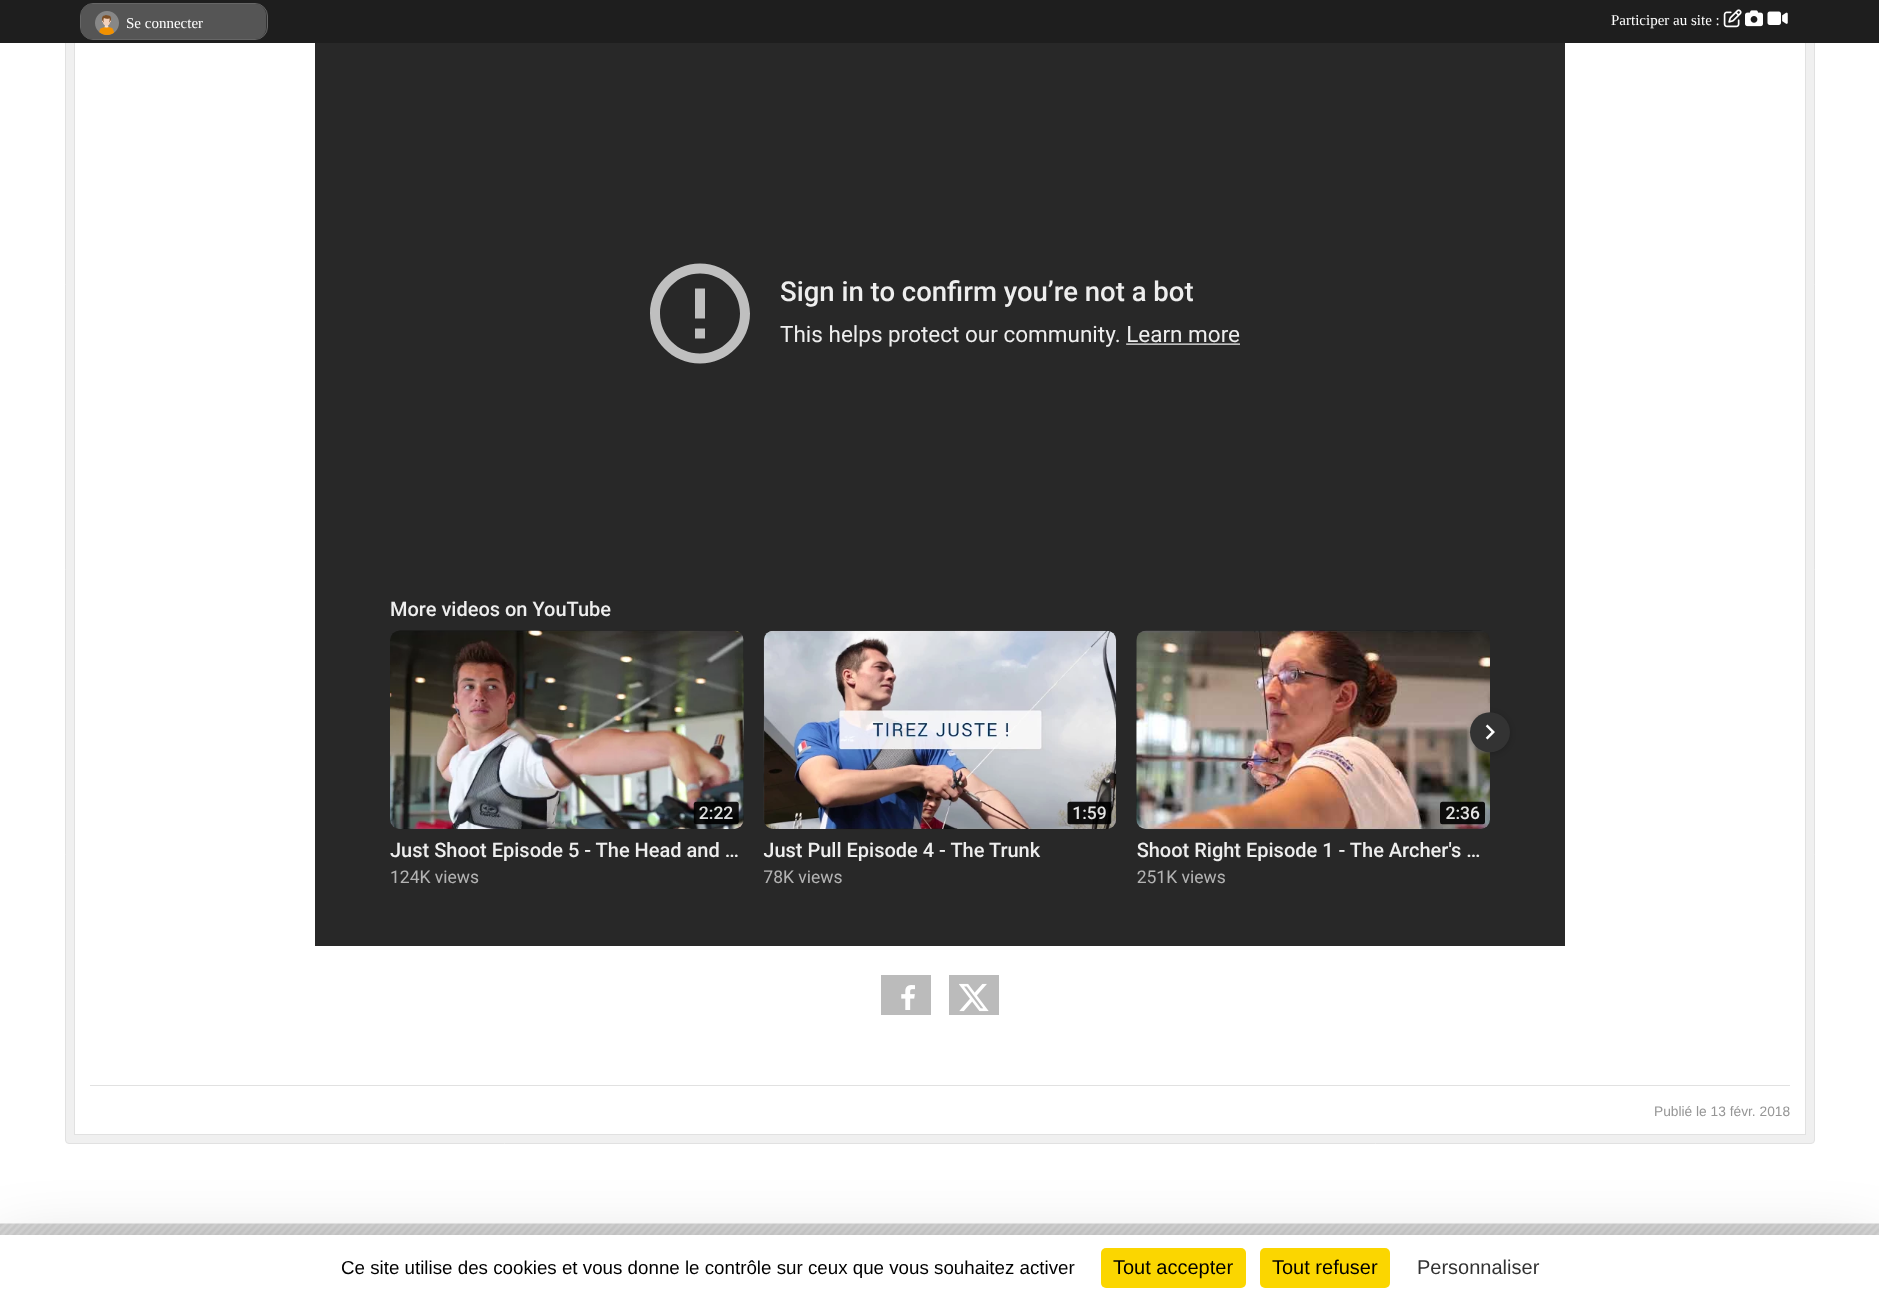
async function draw(canvas) {
  canvas.width = 1879;
  canvas.height = 1300;
  const ctx = canvas.getContext('2d');
  ctx.miterLimit = 4;
  ctx.fontKerning = 'normal';
  function label(s, x, y, font, color) {
    ctx.font = font;
    ctx.fillStyle = color;
    ctx.fillText(s, x, y);
  }
  function rect(x, y, w, h, color) {
    ctx.fillStyle = color;
    ctx.fillRect(x, y, w, h);
  }
  function roundedRect(x, y, w, h, r, color) {
    ctx.fillStyle = color;
    ctx.beginPath();
    ctx.roundRect(x, y, w, h, r);
    ctx.fill();
  }
  async function image(src, x, y, w, h) {
    const img = new Image();
    img.src = src;
    await img.decode();
    ctx.drawImage(img, x, y, w, h);
  }

  rect(0, 0, 1879, 1300, '#fff');
  ctx.fillStyle = '#f0f0f0';
  ctx.beginPath();
  ctx.roundRect(65.5, -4.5, 1749, 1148, 3.5);
  ctx.fill();
  ctx.strokeStyle = '#e1e1e1';
  ctx.stroke();
  rect(75, 43, 1730, 1091, '#fff');
  ctx.strokeRect(74.5, -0.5, 1731, 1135);
  rect(0, 0, 1879, 43, '#1e1e1e');
  ctx.fillStyle = '#333';
  ctx.beginPath();
  ctx.roundRect(80.5, 3.5, 187, 36, 12.5);
  ctx.fill();
  ctx.strokeStyle = '#666';
  ctx.stroke();
  roundedRect(81, 4, 185, 35, 11, '#555');
  await image('assets/img1.png', 95, 11, 24, 24);
  label('Se connecter', 126, 28, '15px Liberation Serif', '#fff');
  label('Participer au site :', 1611, 25, '15px Liberation Serif', '#fff');
  await image('assets/img2.png', 1723, 9, 19, 19);
  await image('assets/img3.png', 1745, 10, 18, 17);
  await image('assets/img4.png', 1767, 11, 21, 14);
  await image('assets/img5.png', 315, 43, 1250, 903);
  rect(881, 975, 50, 40, '#bbb');
  await image('assets/img6.png', 901, 985, 14, 25);
  rect(949, 975, 50, 40, '#bbb');
  await image('assets/img7.png', 959, 983, 30, 29);
  rect(90, 1085, 1700, 1, '#e1e1e1');
  label('Publié le 13 févr. 2018', 1654, 1116, '13.75px Liberation Sans', '#969696');
  await image('assets/img8.png', 0, 1223, 1879, 12);
  ctx.fillStyle = '#00000040';
  ctx.filter = 'blur(37.5px)';
  ctx.beginPath();
  ctx.rect(0, 1260, 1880, 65);
  ctx.fill();
  ctx.filter = 'none';
  rect(0, 1235, 1879, 65, '#fff');
  label('Ce site utilise des cookies et vous donne le contrôle sur ceux que vous souhaitez activer', 341, 1274, '18.75px Liberation Sans', '#000');
  roundedRect(1101, 1248, 145, 40, 5, '#fbd600');
  label('Tout accepter', 1113, 1274, '20px Liberation Sans', '#000');
  roundedRect(1260, 1248, 130, 40, 5, '#fbd600');
  label('Tout refuser', 1272, 1274, '20px Liberation Sans', '#000');
  label('Personnaliser', 1417, 1274, '20px Liberation Sans', '#333');
}

draw(document.querySelector('canvas'));
